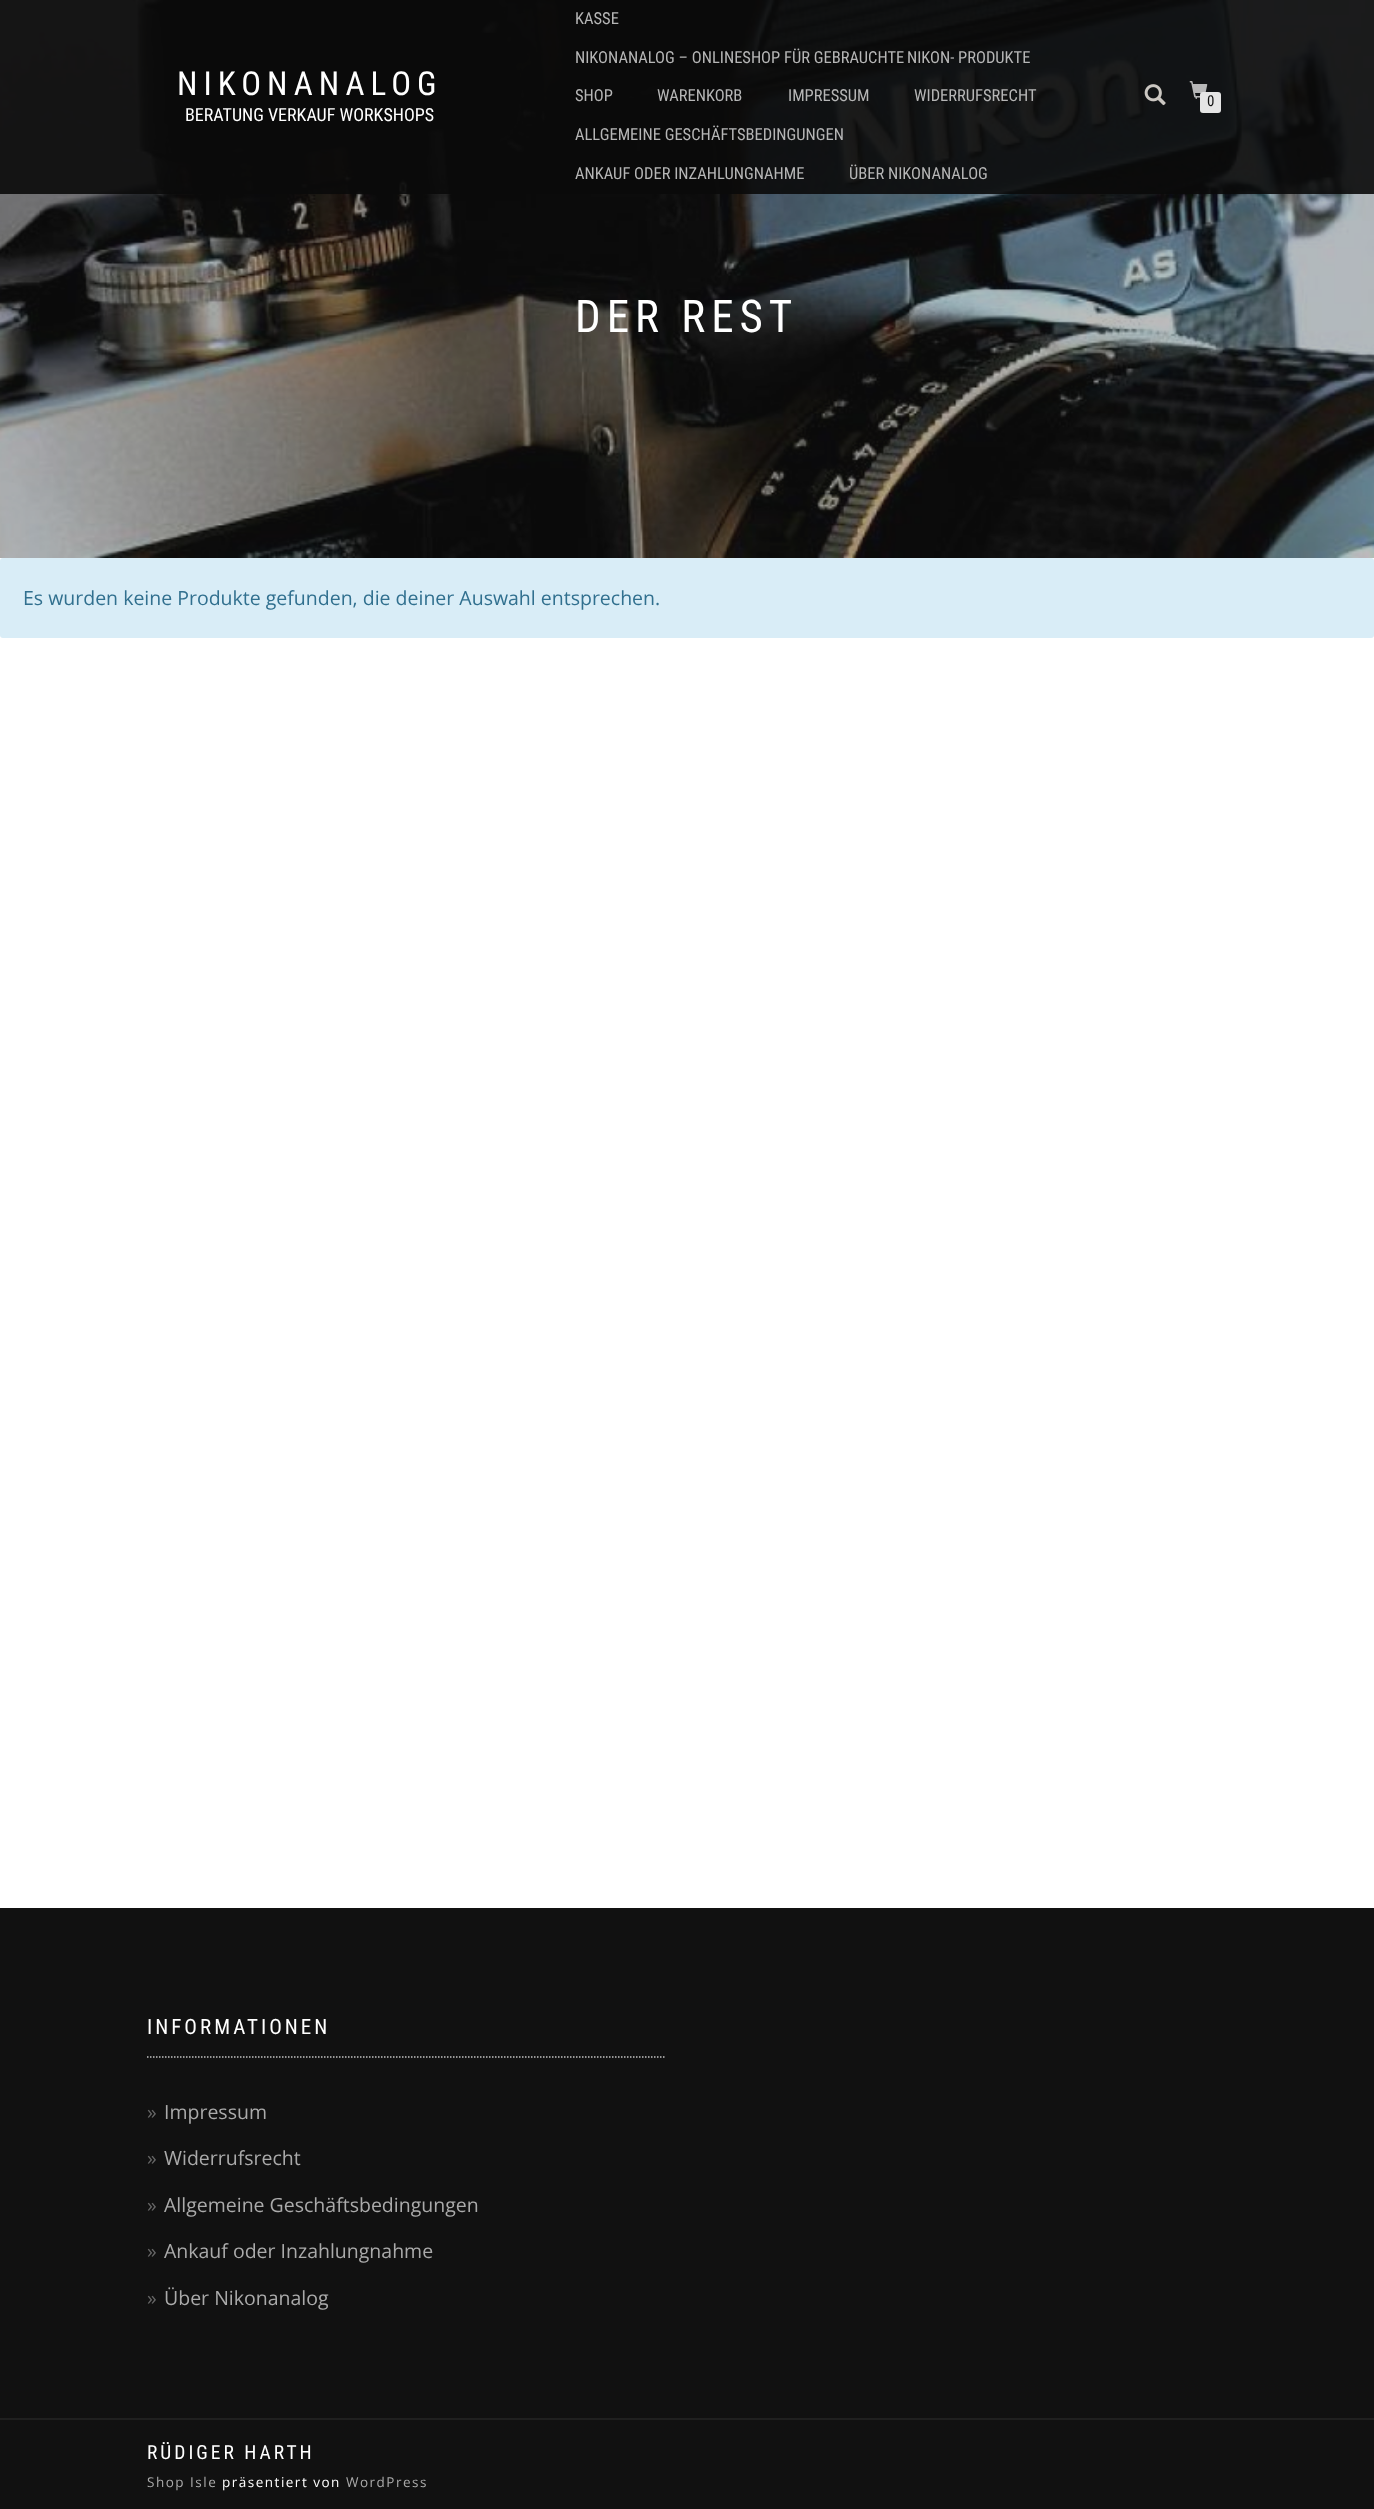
async function draw(canvas) {
  canvas.width = 1374;
  canvas.height = 2509;
  const ctx = canvas.getContext('2d');
  ctx.miterLimit = 4;
  ctx.fontKerning = 'normal';
  function label(s, x, y, font, color) {
    ctx.font = font;
    ctx.fillStyle = color;
    ctx.fillText(s, x, y);
  }
  function rect(x, y, w, h, color) {
    ctx.fillStyle = color;
    ctx.fillRect(x, y, w, h);
  }
  function roundedRect(x, y, w, h, r, color) {
    ctx.fillStyle = color;
    ctx.beginPath();
    ctx.roundRect(x, y, w, h, r);
    ctx.fill();
  }
  async function image(src, x, y, w, h) {
    const img = new Image();
    img.src = src;
    await img.decode();
    ctx.drawImage(img, x, y, w, h);
  }
  let path;

  rect(0, 0, 1374, 2509, '#fff');
  await image('assets/img3.png', 0, 0, 1374, 558);
  rect(0, 0, 1374, 194, '#0a0a0ae6');
  ctx.letterSpacing = '6px';
  label('NIKONANALOG', 177, 95, '33px Roboto Condensed', '#fff');
  ctx.letterSpacing = '0px';
  label('BERATUNG VERKAUF WORKSHOPS', 185, 121, '18px Roboto Condensed', '#fff');
  label('KASSE', 575, 24, '16.5px Roboto Condensed', '#b6b6b6');
  label('NIKONANALOG – ONLINESHOP FÜR GEBRAUCHTE', 575, 63, '16.5px Roboto Condensed', '#b6b6b6');
  label('NIKON- PRODUKTE', 907, 63, '16.5px Roboto Condensed', '#b6b6b6');
  label('SHOP', 575, 101, '16.5px Roboto Condensed', '#b6b6b6');
  label('WARENKORB', 657, 101, '16.5px Roboto Condensed', '#b6b6b6');
  label('IMPRESSUM', 788, 101, '16.5px Roboto Condensed', '#b6b6b6');
  label('WIDERRUFSRECHT', 914, 101, '16.5px Roboto Condensed', '#b6b6b6');
  label('ALLGEMEINE GESCHÄFTSBEDINGUNGEN', 575, 140, '16.5px Roboto Condensed', '#b6b6b6');
  label('ANKAUF ODER INZAHLUNGNAHME', 575, 179, '16.5px Roboto Condensed', '#b6b6b6');
  label('ÜBER NIKONANALOG', 849, 179, '16.5px Roboto Condensed', '#b6b6b6');
  await image('assets/img1.png', 1144, 84, 22, 22);
  await image('assets/img2.png', 1189, 81, 19, 18);
  roundedRect(1200, 92, 21, 21, 3, '#e5e5e5');
  label('0', 1207, 106, '15px Roboto Condensed', '#111');
  ctx.letterSpacing = '6px';
  label('DER REST', 575, 332, '45px Roboto Condensed', '#fff');
  roundedRect(0, 558, 1374, 80, 3, '#d9edf7');
  ctx.letterSpacing = '0px';
  label('Es wurden keine Produkte gefunden, die deiner Auswahl entsprechen.', 23, 605, '19.5px Open Sans', '#31708f');
  rect(0, 1908, 1374, 510, '#111');
  path = new Path2D('M147 2057H664.5');
  ctx.strokeStyle = '#c2c2c2';
  ctx.lineWidth = 1.5;
  ctx.setLineDash([1.5, 1.5]);
  ctx.stroke(path);
  ctx.letterSpacing = '3px';
  label('INFORMATIONEN', 147, 2034, '21px Roboto Condensed', '#fff');
  ctx.letterSpacing = '0px';
  label('»', 147, 2119, '19.5px Open Sans', '#666');
  label('Impressum', 164, 2119, '19.5px Open Sans', '#aaa');
  label('»', 147, 2165, '19.5px Open Sans', '#666');
  label('Widerrufsrecht', 164, 2165, '19.5px Open Sans', '#aaa');
  label('»', 147, 2212, '19.5px Open Sans', '#666');
  label('Allgemeine Geschäftsbedingungen', 164, 2212, '19.5px Open Sans', '#aaa');
  label('»', 147, 2258, '19.5px Open Sans', '#666');
  label('Ankauf oder Inzahlungnahme', 164, 2258, '19.5px Open Sans', '#aaa');
  label('»', 147, 2305, '19.5px Open Sans', '#666');
  label('Über Nikonanalog', 164, 2305, '19.5px Open Sans', '#aaa');
  rect(0, 2420, 1374, 89, '#111');
  rect(0, 2418, 1374, 2, '#202020');
  ctx.letterSpacing = '3px';
  label('RÜDIGER HARTH', 147, 2459, '19.5px Roboto Condensed', '#fff');
  ctx.letterSpacing = '1.5px';
  label('Shop Isle', 147, 2487, '13.5px Open Sans', '#aaa');
  label('präsentiert von', 222, 2487, '13.5px Open Sans', '#fff');
  label('WordPress', 346, 2487, '13.5px Open Sans', '#aaa');
}

draw(document.querySelector('canvas'));
